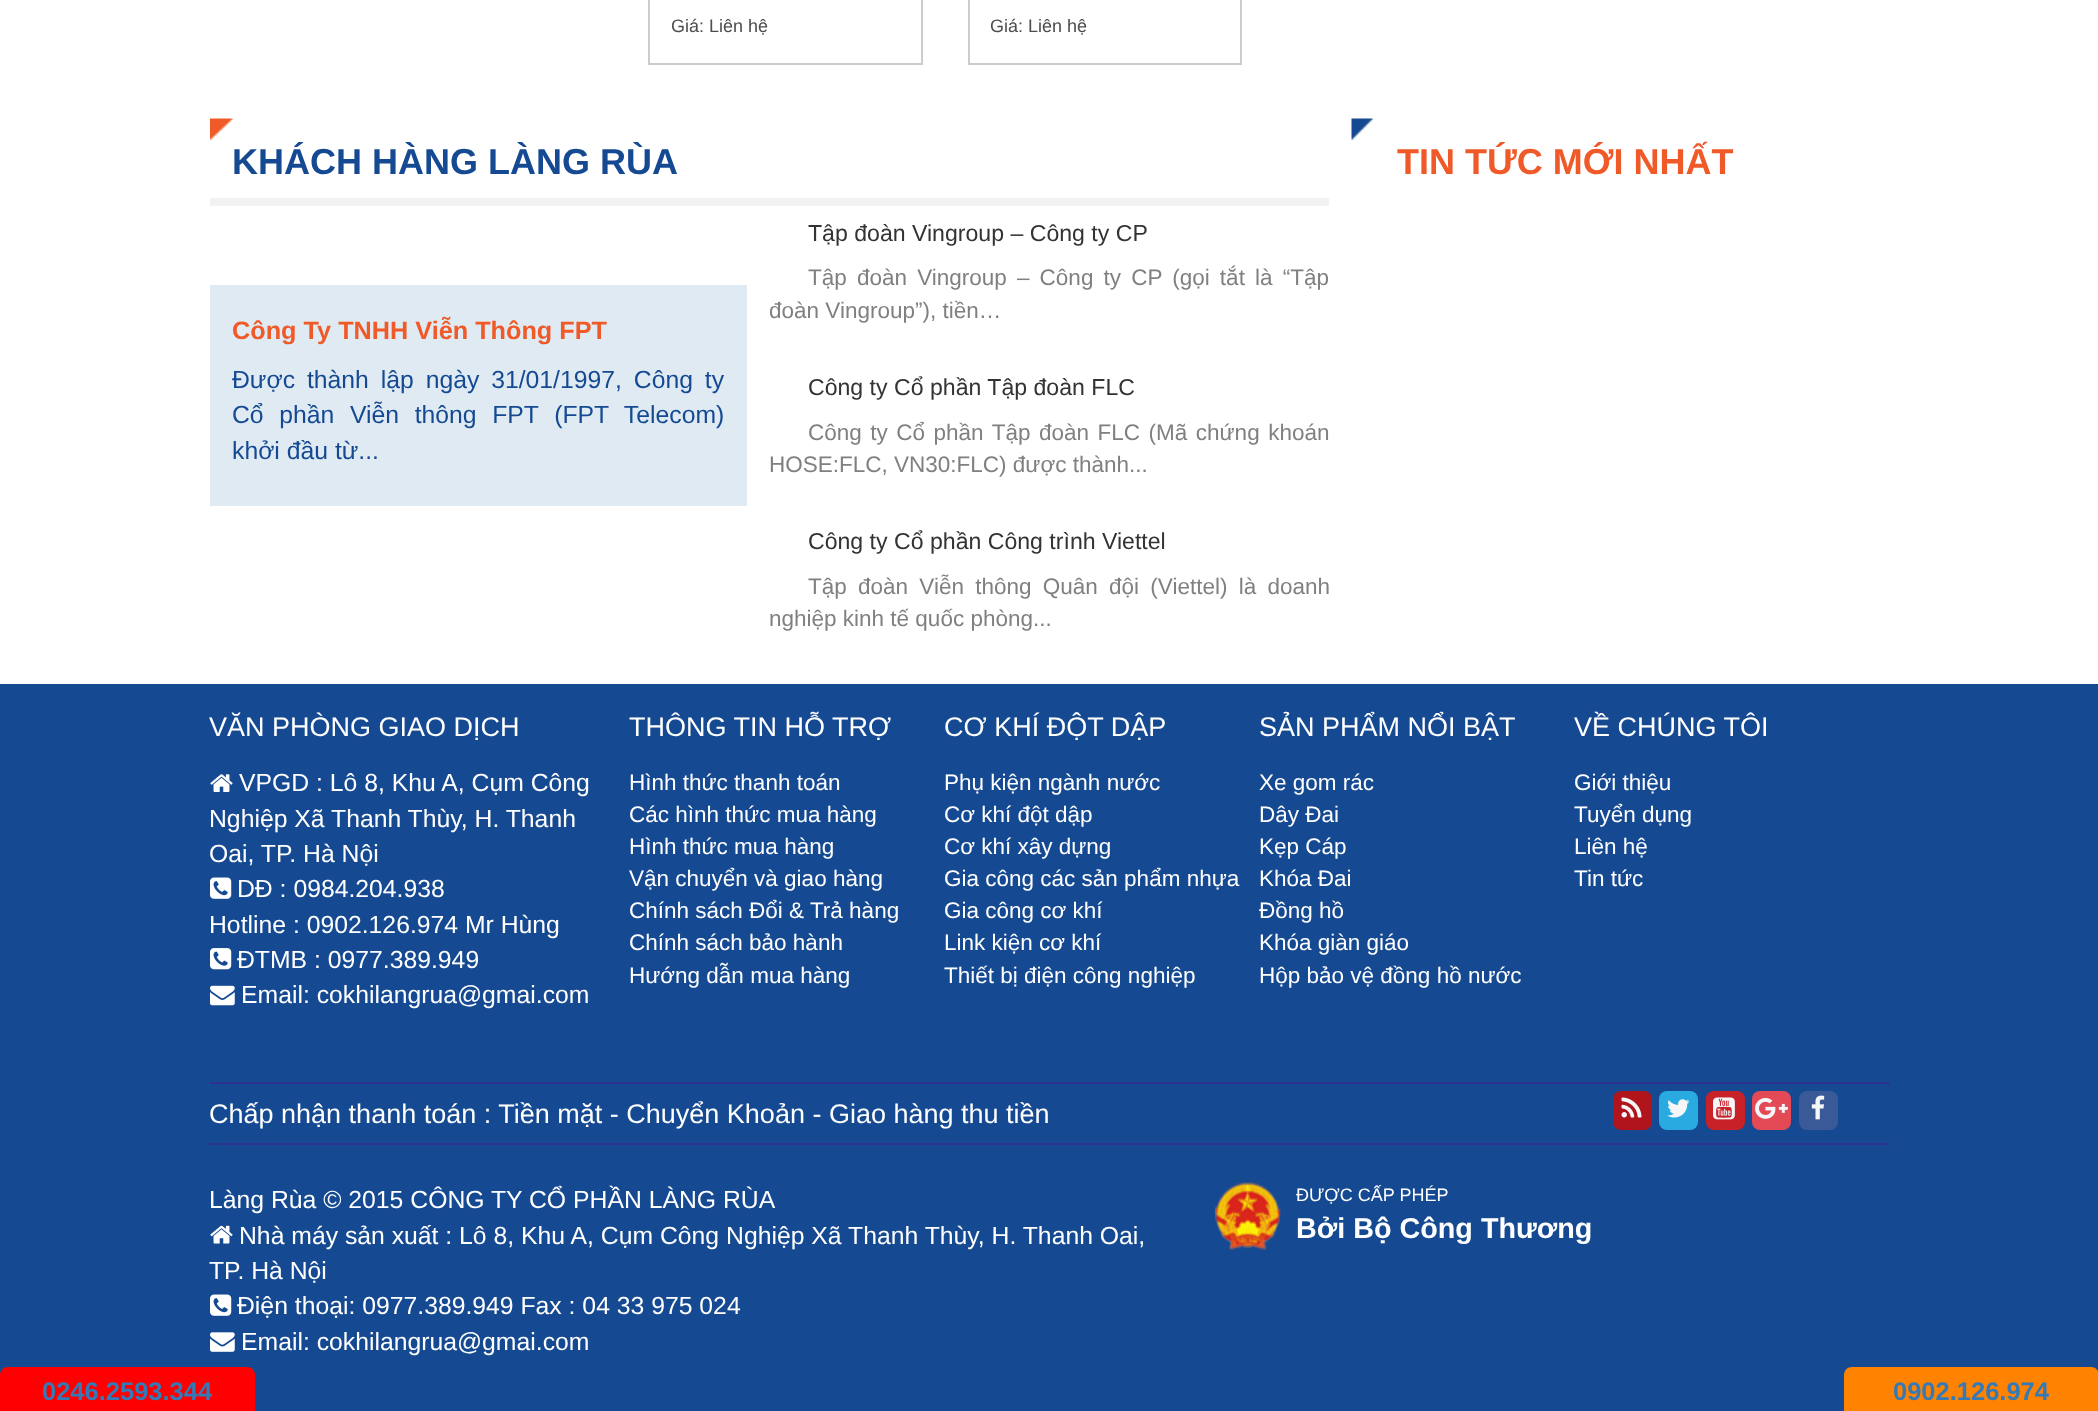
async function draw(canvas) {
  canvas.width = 2098;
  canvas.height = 1411;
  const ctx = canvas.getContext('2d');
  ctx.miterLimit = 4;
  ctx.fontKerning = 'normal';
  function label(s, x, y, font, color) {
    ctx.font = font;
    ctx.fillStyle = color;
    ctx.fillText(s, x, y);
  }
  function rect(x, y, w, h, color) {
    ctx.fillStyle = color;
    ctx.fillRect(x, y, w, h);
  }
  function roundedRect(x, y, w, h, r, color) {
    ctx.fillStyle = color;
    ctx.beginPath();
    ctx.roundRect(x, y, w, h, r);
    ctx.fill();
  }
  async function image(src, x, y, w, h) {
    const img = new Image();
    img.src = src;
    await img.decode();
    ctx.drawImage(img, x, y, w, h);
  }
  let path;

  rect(0, 0, 2098, 1411, '#fff');
  ctx.strokeStyle = '#ccc';
  ctx.lineWidth = 2;
  ctx.strokeRect(649, -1, 273, 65);
  label('Giá: Liên hệ', 671, 32, '18px Liberation Sans', '#4d4d4d');
  ctx.strokeRect(969, -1, 272, 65);
  label('Giá: Liên hệ', 990, 32, '18px Liberation Sans', '#4d4d4d');
  await image('assets/img1.png', 210, 118, 24, 23);
  rect(210, 198, 1119, 8, '#f2f2f2');
  label('KHÁCH HÀNG LÀNG RÙA', 232, 174, 'bold 36px Liberation Sans', '#154a93');
  rect(210, 285, 537, 221, '#dfeaf2');
  label('Công Ty TNHH Viễn Thông FPT', 232, 339, 'bold 25.25px Liberation Sans', '#f05a28');
  ctx.wordSpacing = '5px';
  label('Được thành lập ngày 31/01/1997, Công ty', 232, 388, '24.75px Liberation Sans', '#154a93');
  ctx.wordSpacing = '8.75px';
  label('Cổ phần Viễn thông FPT (FPT Telecom)', 232, 423, '24.75px Liberation Sans', '#154a93');
  ctx.wordSpacing = '0px';
  label('khởi đầu từ...', 232, 459, '24.75px Liberation Sans', '#154a93');
  label('Tập đoàn Vingroup – Công ty CP', 808, 241, '23.1px Liberation Sans', '#333');
  ctx.wordSpacing = '3.9px';
  label('Tập đoàn Vingroup – Công ty CP (gọi tắt là “Tập', 808, 285, '22.5px Liberation Sans', '#808080');
  ctx.wordSpacing = '0px';
  label('đoàn Vingroup”), tiền…', 769, 318, '22.5px Liberation Sans', '#808080');
  label('Công ty Cổ phần Tập đoàn FLC', 808, 395, '23.1px Liberation Sans', '#333');
  ctx.wordSpacing = '2.25px';
  label('Công ty Cổ phần Tập đoàn FLC (Mã chứng khoán', 808, 440, '22.5px Liberation Sans', '#808080');
  ctx.wordSpacing = '0px';
  label('HOSE:FLC, VN30:FLC) được thành...', 769, 472, '22.5px Liberation Sans', '#808080');
  label('Công ty Cổ phần Công trình Viettel', 808, 549, '23.1px Liberation Sans', '#333');
  ctx.wordSpacing = '5px';
  label('Tập đoàn Viễn thông Quân đội (Viettel) là doanh', 808, 594, '22.5px Liberation Sans', '#808080');
  ctx.wordSpacing = '0px';
  label('nghiệp kinh tế quốc phòng...', 769, 626, '22.5px Liberation Sans', '#808080');
  await image('assets/img2.png', 1351, 118, 23, 23);
  label('TIN TỨC MỚI NHẤT', 1397, 174, 'bold 36px Liberation Sans', '#f05a28');
  rect(0, 684, 2098, 727, '#154a93');
  label('VĂN PHÒNG GIAO DỊCH', 209, 736, '27px Liberation Sans', '#fff');
  await image('assets/img3.png', 210, 774, 23, 18);
  label('VPGD : Lô 8, Khu A, Cụm Công', 239, 791, '24.75px Liberation Sans', '#fff');
  label('Nghiệp Xã Thanh Thùy, H. Thanh', 209, 827, '24.75px Liberation Sans', '#fff');
  label('Oai, TP. Hà Nội', 209, 862, '24.75px Liberation Sans', '#fff');
  await image('assets/img4.png', 210, 877, 22, 22);
  label('DĐ : 0984.204.938', 237, 897, '24.75px Liberation Sans', '#fff');
  label('Hotline : 0902.126.974 Mr Hùng', 209, 933, '24.75px Liberation Sans', '#fff');
  await image('assets/img5.png', 210, 948, 22, 22);
  label('ĐTMB : 0977.389.949', 237, 968, '24.75px Liberation Sans', '#fff');
  await image('assets/img6.png', 210, 985, 25, 21);
  label('Email: cokhilangrua@gmai.com', 241, 1003, '24.75px Liberation Sans', '#fff');
  label('THÔNG TIN HỖ TRỢ', 629, 736, '27px Liberation Sans', '#fff');
  label('Hình thức thanh toán', 629, 790, '22.5px Liberation Sans', '#fff');
  label('Các hình thức mua hàng', 629, 822, '22.5px Liberation Sans', '#fff');
  label('Hình thức mua hàng', 629, 854, '22.5px Liberation Sans', '#fff');
  label('Vận chuyển và giao hàng', 629, 886, '22.5px Liberation Sans', '#fff');
  label('Chính sách Đổi & Trả hàng', 629, 918, '22.5px Liberation Sans', '#fff');
  label('Chính sách bảo hành', 629, 950, '22.5px Liberation Sans', '#fff');
  label('Hướng dẫn mua hàng', 629, 983, '22.5px Liberation Sans', '#fff');
  label('CƠ KHÍ ĐỘT DẬP', 944, 736, '27px Liberation Sans', '#fff');
  label('Phụ kiện ngành nước', 944, 790, '22.5px Liberation Sans', '#fff');
  label('Cơ khí đột dập', 944, 822, '22.5px Liberation Sans', '#fff');
  label('Cơ khí xây dựng', 944, 854, '22.5px Liberation Sans', '#fff');
  label('Gia công các sản phẩm nhựa', 944, 886, '22.5px Liberation Sans', '#fff');
  label('Gia công cơ khí', 944, 918, '22.5px Liberation Sans', '#fff');
  label('Link kiện cơ khí', 944, 950, '22.5px Liberation Sans', '#fff');
  label('Thiết bị điện công nghiệp', 944, 983, '22.5px Liberation Sans', '#fff');
  label('SẢN PHẨM NỔI BẬT', 1259, 736, '27px Liberation Sans', '#fff');
  label('Xe gom rác', 1259, 790, '22.5px Liberation Sans', '#fff');
  label('Dây Đai', 1259, 822, '22.5px Liberation Sans', '#fff');
  label('Kẹp Cáp', 1259, 854, '22.5px Liberation Sans', '#fff');
  label('Khóa Đai', 1259, 886, '22.5px Liberation Sans', '#fff');
  label('Đồng hồ', 1259, 918, '22.5px Liberation Sans', '#fff');
  label('Khóa giàn giáo', 1259, 950, '22.5px Liberation Sans', '#fff');
  label('Hộp bảo vệ đồng hồ nước', 1259, 983, '22.5px Liberation Sans', '#fff');
  label('VỀ CHÚNG TÔI', 1574, 736, '27px Liberation Sans', '#fff');
  label('Giới thiệu', 1574, 790, '22.5px Liberation Sans', '#fff');
  label('Tuyển dụng', 1574, 822, '22.5px Liberation Sans', '#fff');
  label('Liên hệ', 1574, 854, '22.5px Liberation Sans', '#fff');
  label('Tin tức', 1574, 886, '22.5px Liberation Sans', '#fff');
  rect(210, 1082, 1680, 2, '#2e3192');
  rect(210, 1143, 1680, 2, '#2e3192');
  label('Chấp nhận thanh toán : Tiền mặt - Chuyển Khoản - Giao hàng thu tiền', 209, 1123, '27px Liberation Sans', '#fff');
  roundedRect(1613, 1091, 39, 39, 8, '#af151b');
  await image('assets/img7.png', 1621, 1097, 21, 21);
  roundedRect(1659, 1091, 39, 39, 8, '#29abe2');
  await image('assets/img8.png', 1667, 1099, 23, 19);
  roundedRect(1706, 1091, 39, 39, 8, '#c92128');
  await image('assets/img9.png', 1713, 1097, 22, 23);
  roundedRect(1752, 1091, 39, 39, 8, '#e44a55');
  await image('assets/img10.png', 1755, 1098, 33, 21);
  roundedRect(1799, 1091, 39, 39, 8, '#3a5a97');
  await image('assets/img11.png', 1811, 1095, 14, 25);
  label('Làng Rùa © 2015 CÔNG TY CỔ PHẦN LÀNG RÙA', 209, 1208, '24.75px Liberation Sans', '#fff');
  await image('assets/img12.png', 210, 1225, 23, 19);
  label('Nhà máy sản xuất : Lô 8, Khu A, Cụm Công Nghiệp Xã Thanh Thùy, H. Thanh Oai,', 239, 1244, '24.75px Liberation Sans', '#fff');
  label('TP. Hà Nội', 209, 1279, '24.75px Liberation Sans', '#fff');
  await image('assets/img4.png', 210, 1294, 22, 22);
  label('Điện thoại: 0977.389.949 Fax : 04 33 975 024', 237, 1314, '24.75px Liberation Sans', '#fff');
  await image('assets/img13.png', 210, 1332, 25, 20);
  label('Email: cokhilangrua@gmai.com', 241, 1350, '24.75px Liberation Sans', '#fff');
  await image('assets/img14.png', 1215, 1182, 66, 68);
  label('ĐƯỢC CẤP PHÉP', 1296, 1201, '18px Liberation Sans', '#fff');
  label('Bởi Bộ Công Thương', 1296, 1238, 'bold 28.75px Liberation Sans', '#fff');
  ctx.fillStyle = '#f00';
  path = new Path2D('M8 1367H247C251.5 1367 255 1370.5 255 1375V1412H0V1375C0 1370.5 3.5 1367 8 1367Z');
  ctx.fill(path);
  label('0246.2593.344', 42, 1400, 'bold 25.5px Liberation Sans', '#337ab7');
  ctx.fillStyle = '#ff8201';
  path = new Path2D('M1852 1367H2091C2095.5 1367 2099 1370.5 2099 1375V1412H1844V1375C1844 1370.5 1847.5 1367 1852 1367Z');
  ctx.fill(path);
  label('0902.126.974', 1893, 1400, 'bold 25.5px Liberation Sans', '#337ab7');
}

draw(document.querySelector('canvas'));
